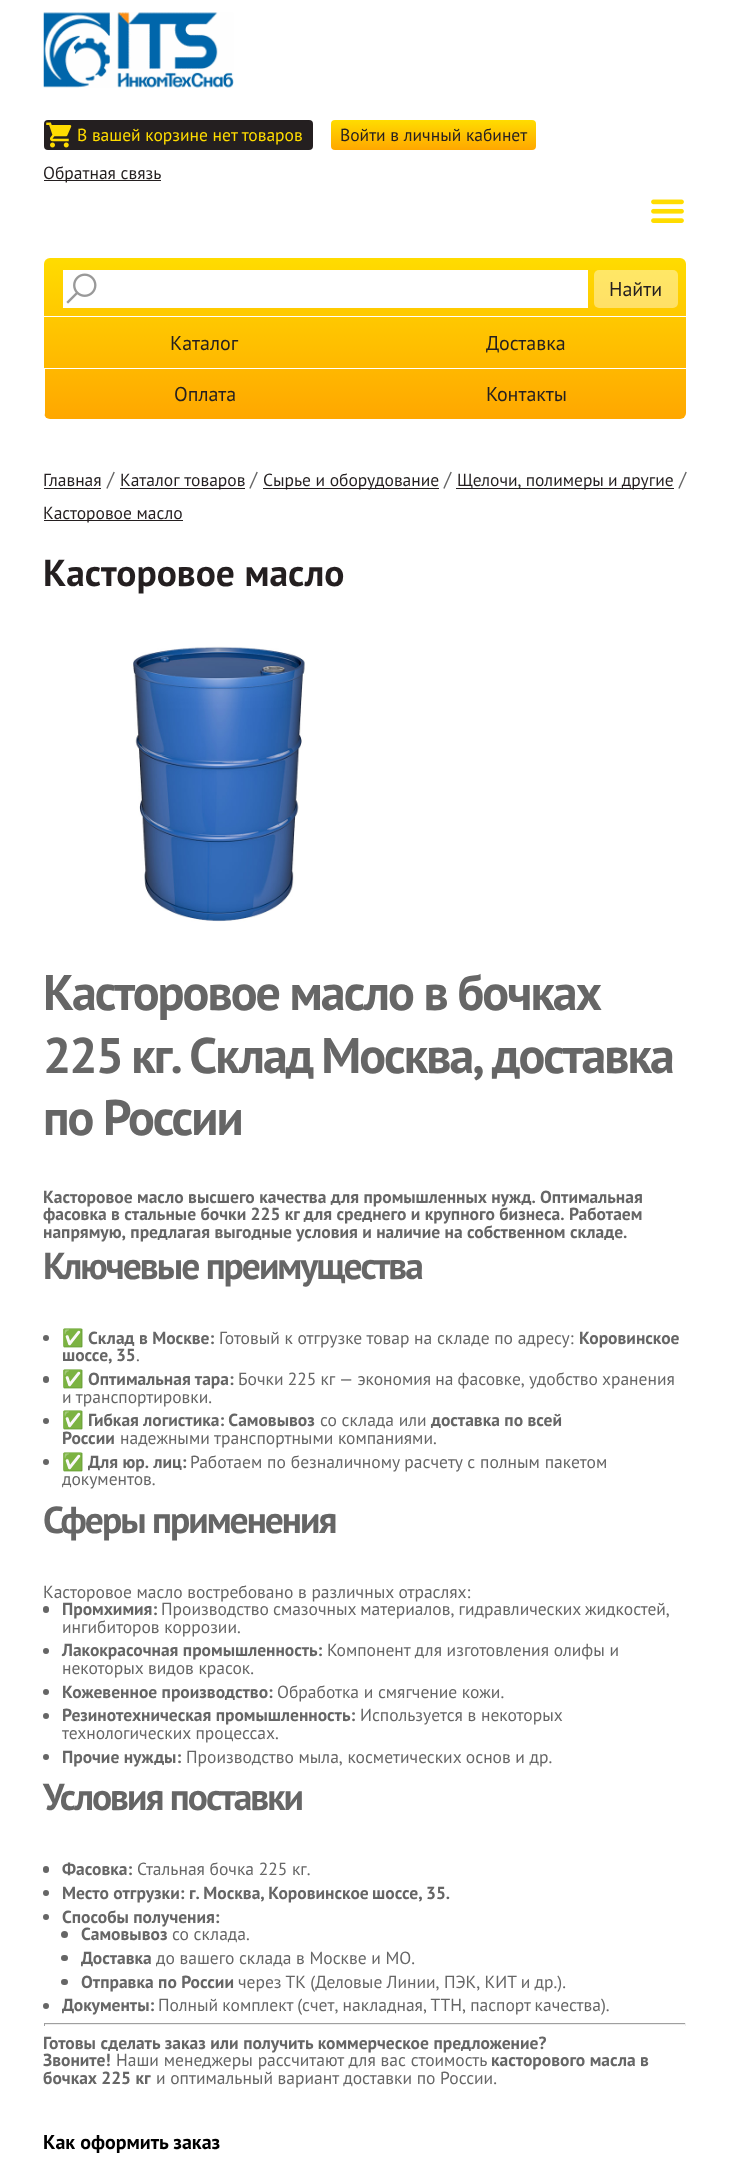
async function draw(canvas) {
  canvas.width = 730;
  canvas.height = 2160;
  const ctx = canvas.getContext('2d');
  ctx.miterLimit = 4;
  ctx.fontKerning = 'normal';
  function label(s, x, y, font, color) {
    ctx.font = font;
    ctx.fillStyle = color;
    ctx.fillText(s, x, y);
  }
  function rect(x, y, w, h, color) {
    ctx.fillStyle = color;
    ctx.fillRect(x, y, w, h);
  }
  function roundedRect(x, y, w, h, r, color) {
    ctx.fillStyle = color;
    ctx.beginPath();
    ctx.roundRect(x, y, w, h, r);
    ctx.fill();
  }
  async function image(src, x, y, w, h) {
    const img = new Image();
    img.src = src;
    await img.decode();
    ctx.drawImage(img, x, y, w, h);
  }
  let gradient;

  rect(0, 0, 730, 2160, '#fff');
  await image('assets/img1.png', 43, 12, 191, 76);
  roundedRect(44, 120, 269, 30, 4, '#241f20');
  await image('assets/img2.png', 46, 122, 26, 26);
  label('В вашей корзине нет товаров', 77, 141, '17.5px PT Sans', '#ffdc00');
  gradient = ctx.createLinearGradient(434, 120, 434, 150);
  gradient.addColorStop(0, '#ffdc00');
  gradient.addColorStop(1, '#ffa700');
  ctx.fillStyle = gradient;
  ctx.beginPath();
  ctx.roundRect(331, 120, 205, 30, 4);
  ctx.fill();
  label('Войти в личный кабинет', 340, 141, '17.5px PT Sans', '#241f20');
  rect(44, 180, 117, 1, '#241f20');
  label('Обратная связь', 43, 179, '17.5px PT Sans', '#241f20');
  await image('assets/img3.png', 651, 199, 33, 24);
  gradient = ctx.createLinearGradient(365, 257, 365, 419);
  gradient.addColorStop(0, '#ffdc00');
  gradient.addColorStop(1, '#ffa700');
  ctx.fillStyle = gradient;
  ctx.beginPath();
  ctx.roundRect(44, 258, 642, 161, 6);
  ctx.fill();
  rect(63, 270, 525, 38, '#fff');
  await image('assets/img4.png', 66, 273, 31, 31);
  roundedRect(594, 270, 84, 38, 5, '#ffffff66');
  label('Найти', 609, 296, '20px PT Sans', '#241f20');
  rect(44, 316, 642, 1, '#fff');
  label('Каталог', 170, 350, '20px PT Sans', '#241f20');
  label('Доставка', 486, 350, '20px PT Sans', '#241f20');
  rect(44, 368, 642, 1, '#fff');
  ctx.save();
  ctx.beginPath();
  ctx.roundRect(44, 258, 642, 161, 6);
  ctx.clip();
  rect(44, 368, 1, 51, '#fff');
  ctx.restore();
  label('Оплата', 174, 401, '20px PT Sans', '#241f20');
  label('Контакты', 486, 401, '20px PT Sans', '#241f20');
  label('Главная', 43, 486, '17.5px PT Sans', '#241f20');
  rect(44, 488, 57, 1, '#241f20');
  label('/', 107, 486, '20px PT Sans', '#666');
  rect(120, 488, 125, 1, '#241f20');
  ctx.wordSpacing = '1px';
  label('Каталог товаров', 120, 486, '17.5px PT Sans', '#241f20');
  ctx.wordSpacing = '0px';
  label('/', 250, 486, '20px PT Sans', '#666');
  rect(263, 488, 176, 1, '#241f20');
  label('Сырье и оборудование', 263, 486, '17.5px PT Sans', '#241f20');
  label('/', 444, 486, '20px PT Sans', '#666');
  rect(456, 488, 218, 1, '#241f20');
  ctx.wordSpacing = '-0.5px';
  label('Щелочи, полимеры и другие', 457, 486, '17.5px PT Sans', '#241f20');
  ctx.wordSpacing = '0px';
  label('/', 679, 486, '20px PT Sans', '#666');
  rect(44, 520, 139, 1, '#241f20');
  label('Касторовое масло', 43, 519, '17.5px PT Sans', '#241f20');
  label('Касторовое масло', 43, 586, 'bold 37.5px PT Sans', '#241f20');
  await image('assets/img5.png', 133, 646, 172, 276);
  ctx.letterSpacing = '-2px';
  label('Касторовое масло в бочках', 43, 1010, 'bold 50px PT Sans', '#666');
  ctx.wordSpacing = '-1.5px';
  label('225 кг. Склад Москва, доставка', 43, 1073, 'bold 50px PT Sans', '#666');
  ctx.wordSpacing = '0px';
  label('по России', 43, 1135, 'bold 50px PT Sans', '#666');
  ctx.letterSpacing = '0px';
  label('Касторовое масло высшего качества для промышленных нужд. Оптимальная', 43, 1203, 'bold 17.5px PT Sans', '#666');
  label('фасовка в стальные бочки 225 кг для среднего и крупного бизнеса. Работаем', 43, 1220, 'bold 17.5px PT Sans', '#666');
  label('напрямую, предлагая выгодные условия и наличие на собственном складе.', 43, 1238, 'bold 17.5px PT Sans', '#666');
  ctx.letterSpacing = '-2px';
  label('Ключевые преимущества', 43, 1279, 'bold 37.5px PT Sans', '#666');
  ctx.beginPath();
  ctx.arc(46, 1338, 3, 0, 2 * Math.PI);
  ctx.fill();
  ctx.letterSpacing = '0px';
  label('✅', 62, 1344, 'bold 17.5px Noto Color Emoji', '#666');
  label('Склад в Москве:', 88, 1344, 'bold 17.5px PT Sans', '#666');
  label('Готовый к отгрузке товар на складе по адресу:', 219, 1344, '17.5px PT Sans', '#666');
  label('Коровинское', 579, 1344, 'bold 17.5px PT Sans', '#666');
  ctx.wordSpacing = '-1px';
  label('шоссе, 35', 62, 1361, 'bold 17.5px PT Sans', '#666');
  ctx.wordSpacing = '0px';
  label('.', 136, 1361, '17.5px PT Sans', '#666');
  roundedRect(43, 1376, 6, 7, 3, '#666');
  label('✅', 62, 1385, 'bold 17.5px Noto Color Emoji', '#666');
  label('Оптимальная тара:', 88, 1385, 'bold 17.5px PT Sans', '#666');
  ctx.wordSpacing = '-0.5px';
  label('Бочки 225 кг — экономия на фасовке, удобство хранения', 238, 1385, '17.5px PT Sans', '#666');
  ctx.wordSpacing = '0px';
  label('и транспортировки.', 62, 1403, '17.5px PT Sans', '#666');
  ctx.beginPath();
  ctx.arc(46, 1421, 3, 0, 2 * Math.PI);
  ctx.fill();
  label('✅', 62, 1426, 'bold 17.5px Noto Color Emoji', '#666');
  label('Гибкая логистика: Самовывоз', 88, 1426, 'bold 17.5px PT Sans', '#666');
  label('со склада или', 320, 1426, '17.5px PT Sans', '#666');
  label('доставка по всей', 431, 1426, 'bold 17.5px PT Sans', '#666');
  label('России', 62, 1444, 'bold 17.5px PT Sans', '#666');
  label('надежными транспортными компаниями.', 120, 1444, '17.5px PT Sans', '#666');
  ctx.beginPath();
  ctx.arc(46, 1462, 3, 0, 2 * Math.PI);
  ctx.fill();
  label('✅', 62, 1468, 'bold 17.5px Noto Color Emoji', '#666');
  label('Для юр. лиц:', 88, 1468, 'bold 17.5px PT Sans', '#666');
  ctx.wordSpacing = '0.25px';
  label('Работаем по безналичному расчету с полным пакетом', 190, 1468, '17.5px PT Sans', '#666');
  ctx.wordSpacing = '0px';
  label('документов.', 62, 1485, '17.5px PT Sans', '#666');
  ctx.letterSpacing = '-2px';
  label('Сферы применения', 43, 1533, 'bold 37.5px PT Sans', '#666');
  ctx.letterSpacing = '0px';
  label('Касторовое масло востребовано в различных отраслях:', 43, 1598, '17.5px PT Sans', '#666');
  roundedRect(43, 1606, 6, 7, 3, '#666');
  label('Промхимия:', 62, 1615, 'bold 17.5px PT Sans', '#666');
  ctx.wordSpacing = '-0.5px';
  label('Производство смазочных материалов, гидравлических жидкостей,', 161, 1615, '17.5px PT Sans', '#666');
  ctx.wordSpacing = '0px';
  label('ингибиторов коррозии.', 62, 1633, '17.5px PT Sans', '#666');
  ctx.beginPath();
  ctx.arc(46, 1651, 3, 0, 2 * Math.PI);
  ctx.fill();
  label('Лакокрасочная промышленность:', 62, 1656, 'bold 17.5px PT Sans', '#666');
  label('Компонент для изготовления олифы и', 327, 1656, '17.5px PT Sans', '#666');
  label('некоторых видов красок.', 62, 1674, '17.5px PT Sans', '#666');
  ctx.beginPath();
  ctx.arc(46, 1692, 3, 0, 2 * Math.PI);
  ctx.fill();
  label('Кожевенное производство:', 62, 1698, 'bold 17.5px PT Sans', '#666');
  label('Обработка и смягчение кожи.', 277, 1698, '17.5px PT Sans', '#666');
  ctx.beginPath();
  ctx.arc(46, 1716, 3, 0, 2 * Math.PI);
  ctx.fill();
  label('Резинотехническая промышленность:', 62, 1721, 'bold 17.5px PT Sans', '#666');
  label('Используется в некоторых', 360, 1721, '17.5px PT Sans', '#666');
  label('технологических процессах.', 62, 1739, '17.5px PT Sans', '#666');
  ctx.beginPath();
  ctx.arc(46, 1757, 3, 0, 2 * Math.PI);
  ctx.fill();
  label('Прочие нужды:', 62, 1763, 'bold 17.5px PT Sans', '#666');
  label('Производство мыла, косметических основ и др.', 186, 1763, '17.5px PT Sans', '#666');
  ctx.letterSpacing = '-2px';
  label('Условия поставки', 43, 1810, 'bold 37.5px PT Sans', '#666');
  roundedRect(43, 1866, 6, 7, 3, '#666');
  ctx.letterSpacing = '0px';
  label('Фасовка:', 62, 1875, 'bold 17.5px PT Sans', '#666');
  label('Стальная бочка 225 кг.', 137, 1875, '17.5px PT Sans', '#666');
  ctx.beginPath();
  ctx.arc(46, 1893, 3, 0, 2 * Math.PI);
  ctx.fill();
  label('Место отгрузки:', 62, 1899, 'bold 17.5px PT Sans', '#666');
  ctx.wordSpacing = '-1px';
  label('г. Москва, Коровинское шоссе, 35.', 189, 1899, 'bold 17.5px PT Sans', '#666');
  ctx.beginPath();
  ctx.arc(46, 1917, 3, 0, 2 * Math.PI);
  ctx.fill();
  ctx.wordSpacing = '0px';
  label('Способы получения:', 62, 1923, 'bold 17.5px PT Sans', '#666');
  ctx.beginPath();
  ctx.arc(64.5, 1934.5, 3.5, 0, 2 * Math.PI);
  ctx.fill();
  label('Самовывоз', 81, 1940, 'bold 17.5px PT Sans', '#666');
  label('со склада.', 172, 1940, '17.5px PT Sans', '#666');
  roundedRect(61, 1955, 7, 6, 3, '#666');
  label('Доставка', 81, 1964, 'bold 17.5px PT Sans', '#666');
  label('до вашего склада в Москве и МО.', 156, 1964, '17.5px PT Sans', '#666');
  roundedRect(61, 1979, 7, 6, 3, '#666');
  label('Отправка по России', 81, 1988, 'bold 17.5px PT Sans', '#666');
  ctx.wordSpacing = '-0.25px';
  label('через ТК (Деловые Линии, ПЭК, КИТ и др.).', 238, 1988, '17.5px PT Sans', '#666');
  ctx.beginPath();
  ctx.arc(46, 2006, 3, 0, 2 * Math.PI);
  ctx.fill();
  ctx.wordSpacing = '0px';
  label('Документы:', 62, 2011, 'bold 17.5px PT Sans', '#666');
  ctx.wordSpacing = '-0.5px';
  label('Полный комплект (счет, накладная, ТТН, паспорт качества).', 158, 2011, '17.5px PT Sans', '#666');
  rect(44, 2023, 642, 1, '#9f9f9f');
  rect(685, 2023, 1, 3, '#eee');
  rect(44, 2024, 642, 1, '#eee');
  rect(44, 2023, 1, 3, '#9f9f9f');
  ctx.wordSpacing = '0.25px';
  label('Готовы сделать заказ или получить коммерческое предложение?', 43, 2049, 'bold 17.5px PT Sans', '#666');
  ctx.wordSpacing = '0px';
  label('Звоните!', 43, 2066, 'bold 17.5px PT Sans', '#666');
  ctx.wordSpacing = '0.25px';
  label('Наши менеджеры рассчитают для вас стоимость', 116, 2066, '17.5px PT Sans', '#666');
  ctx.wordSpacing = '0px';
  label('касторового масла в', 491, 2066, 'bold 17.5px PT Sans', '#666');
  label('бочках 225 кг', 43, 2084, 'bold 17.5px PT Sans', '#666');
  label('и оптимальный вариант доставки по России.', 156, 2084, '17.5px PT Sans', '#666');
  label('Как оформить заказ', 43, 2149, 'bold 20px PT Sans', '#000');
}

draw(document.querySelector('canvas'));
